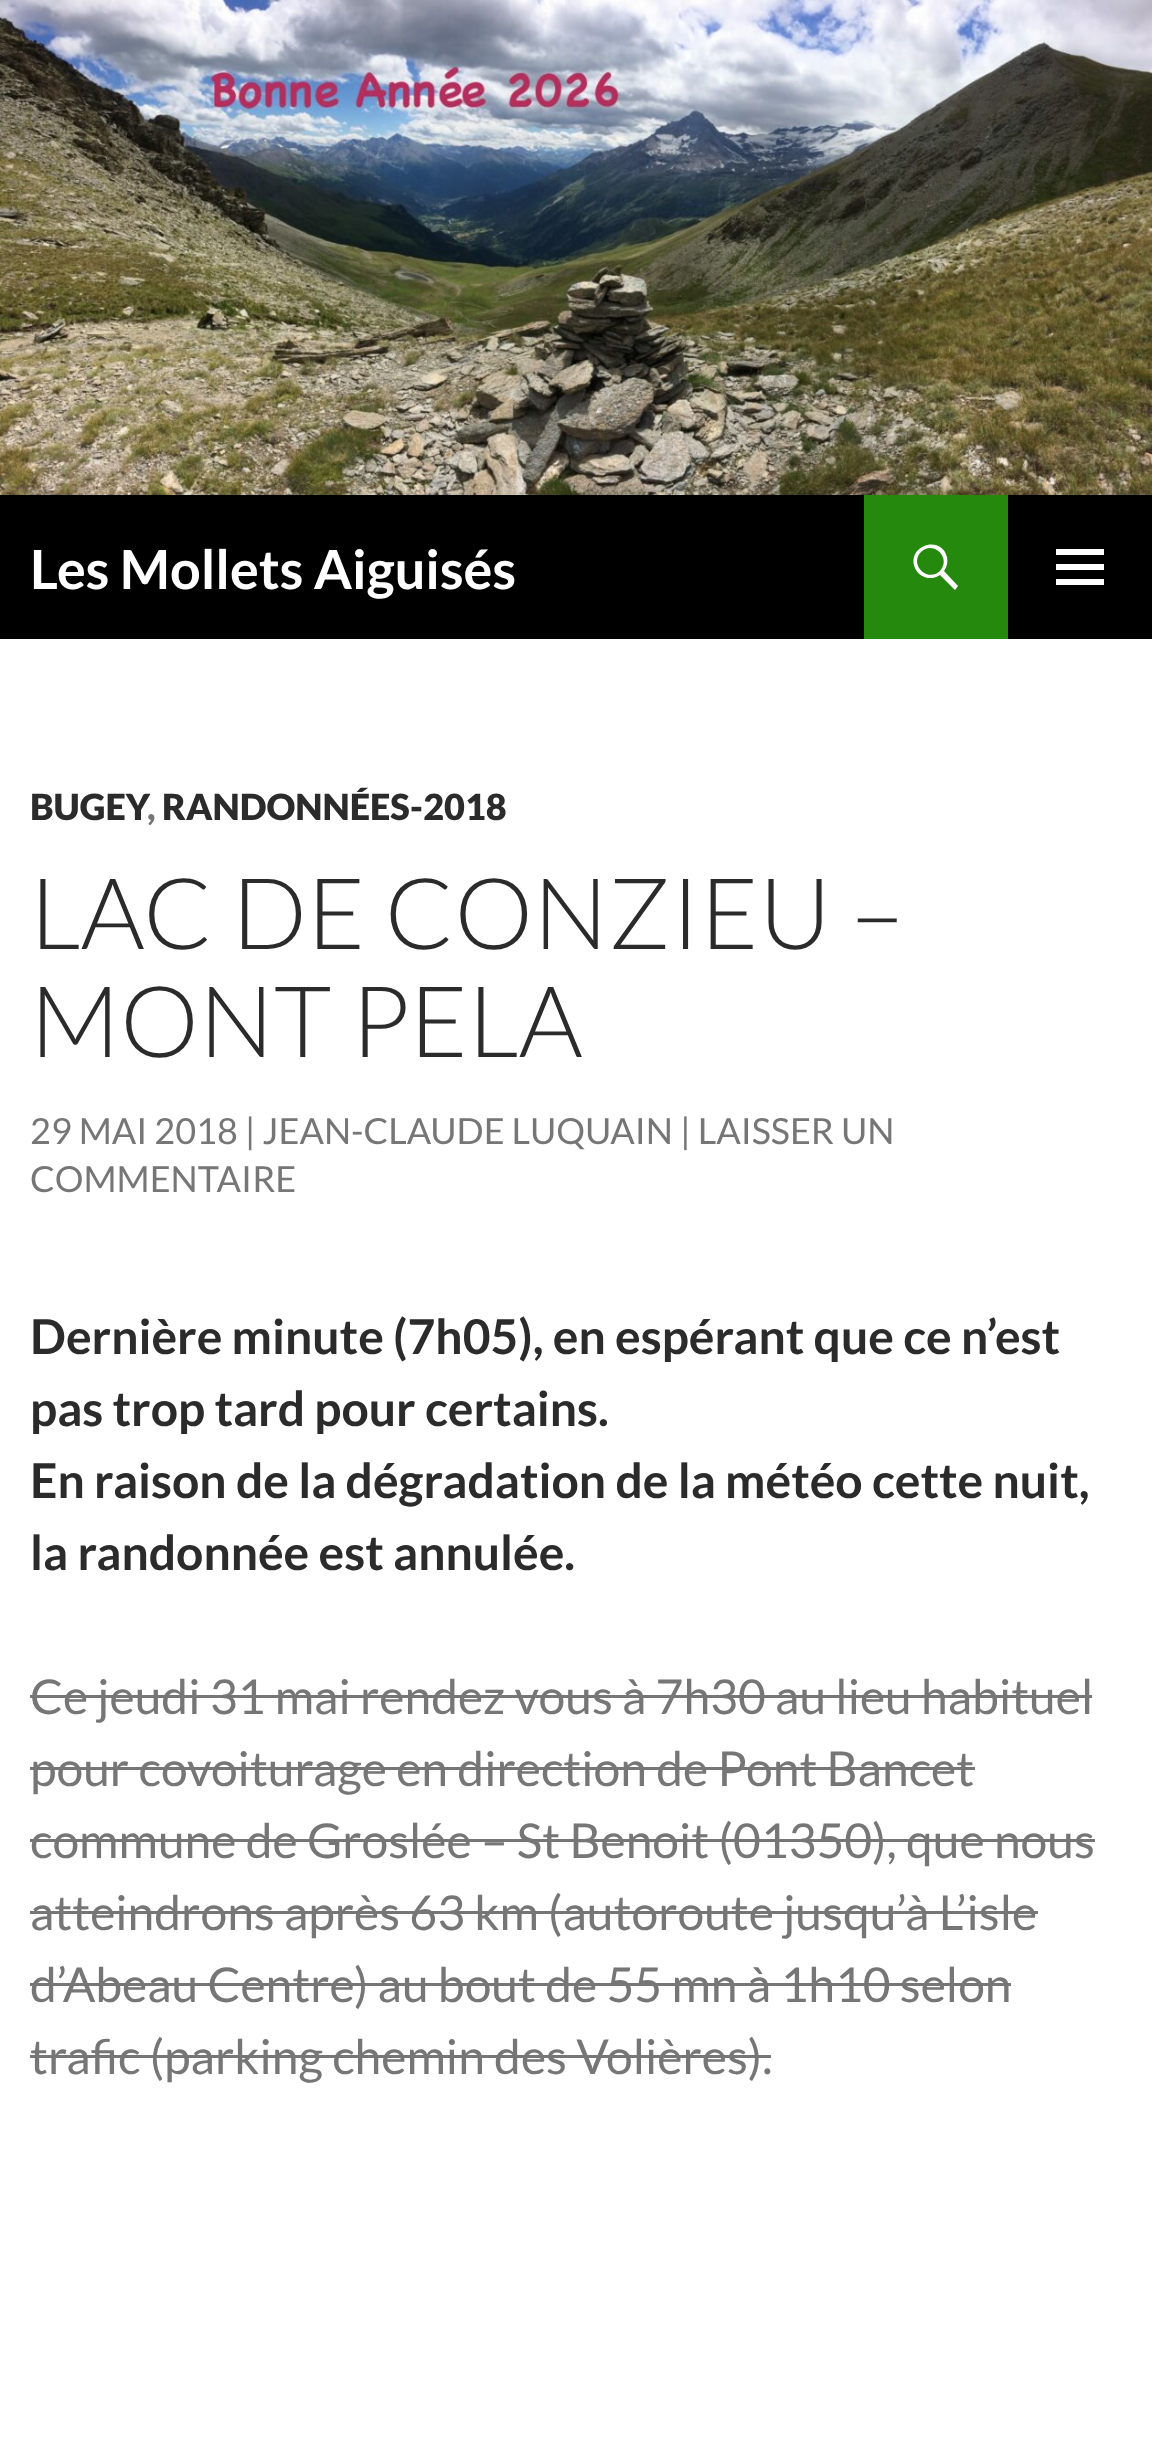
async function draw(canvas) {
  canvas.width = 1152;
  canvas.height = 2442;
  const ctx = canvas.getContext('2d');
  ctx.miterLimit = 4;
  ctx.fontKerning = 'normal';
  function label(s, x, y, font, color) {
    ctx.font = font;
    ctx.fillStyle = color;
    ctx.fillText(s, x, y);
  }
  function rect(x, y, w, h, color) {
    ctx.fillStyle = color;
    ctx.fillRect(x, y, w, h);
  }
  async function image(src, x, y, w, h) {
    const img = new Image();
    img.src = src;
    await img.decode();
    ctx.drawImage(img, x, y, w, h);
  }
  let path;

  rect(0, 0, 1152, 2442, '#fff');
  await image('assets/img1.png', 0, 0, 1152, 495);
  rect(0, 495, 1152, 144, '#000');
  label('Les Mollets Aiguisés', 30, 589, 'bold 54px Lato', '#fff');
  rect(864, 495, 144, 144, '#24890d');
  ctx.fillStyle = '#fff';
  path = new Path2D('M915 568C906 546 941 534 947 557C948 562 947 567 944 571L958 586L955 590L940 575C932 581 919 578 915 568ZM921 552C909 564 927 583 940 571C952 558 933 540 921 552Z');
  ctx.fill(path);
  path = new Path2D('M1056 585V579H1104V585ZM1056 570V564H1104V570ZM1056 555V549H1104V555Z');
  ctx.fill(path);
  label('BUGEY', 30, 820, '900 36px Lato', '#2b2b2b');
  label(',', 147, 820, '900 36px Lato', '#767676');
  label('RANDONNÉES-2018', 162, 820, '900 36px Lato', '#2b2b2b');
  label('LAC DE CONZIEU –', 30, 949, '300 99px Lato', '#2b2b2b');
  label('MONT PELA', 30, 1057, '300 99px Lato', '#2b2b2b');
  label('29 MAI 2018 | JEAN-CLAUDE LUQUAIN | LAISSER UN', 30, 1144, '36px Lato', '#767676');
  label('COMMENTAIRE', 30, 1192, '36px Lato', '#767676');
  label('Dernière minute (7h05), en espérant que ce n’est', 30, 1354, 'bold 48px Lato', '#2b2b2b');
  label('pas trop tard pour certains.', 30, 1426, 'bold 48px Lato', '#2b2b2b');
  label('En raison de la dégradation de la météo cette nuit,', 30, 1498, 'bold 48px Lato', '#2b2b2b');
  label('la randonnée est annulée.', 30, 1570, 'bold 48px Lato', '#2b2b2b');
  label('Ce jeudi 31 mai rendez vous à 7h30 au lieu habituel', 30, 1714, '48px Lato', '#767676');
  rect(30, 1695, 1062, 3, '#767676');
  label('pour covoiturage en direction de Pont Bancet', 30, 1786, '48px Lato', '#767676');
  rect(30, 1767, 945, 3, '#767676');
  label('commune de Groslée – St Benoit (01350), que nous', 30, 1858, '48px Lato', '#767676');
  rect(30, 1839, 1065, 3, '#767676');
  label('atteindrons après 63 km (autoroute jusqu’à L’isle', 30, 1930, '48px Lato', '#767676');
  rect(30, 1911, 1008, 3, '#767676');
  label('d’Abeau Centre) au bout de 55 mn à 1h10 selon', 30, 2002, '48px Lato', '#767676');
  rect(30, 1983, 981, 3, '#767676');
  label('trafic (parking chemin des Volières).', 30, 2074, '48px Lato', '#767676');
  rect(30, 2055, 741, 3, '#767676');
}

draw(document.querySelector('canvas'));
